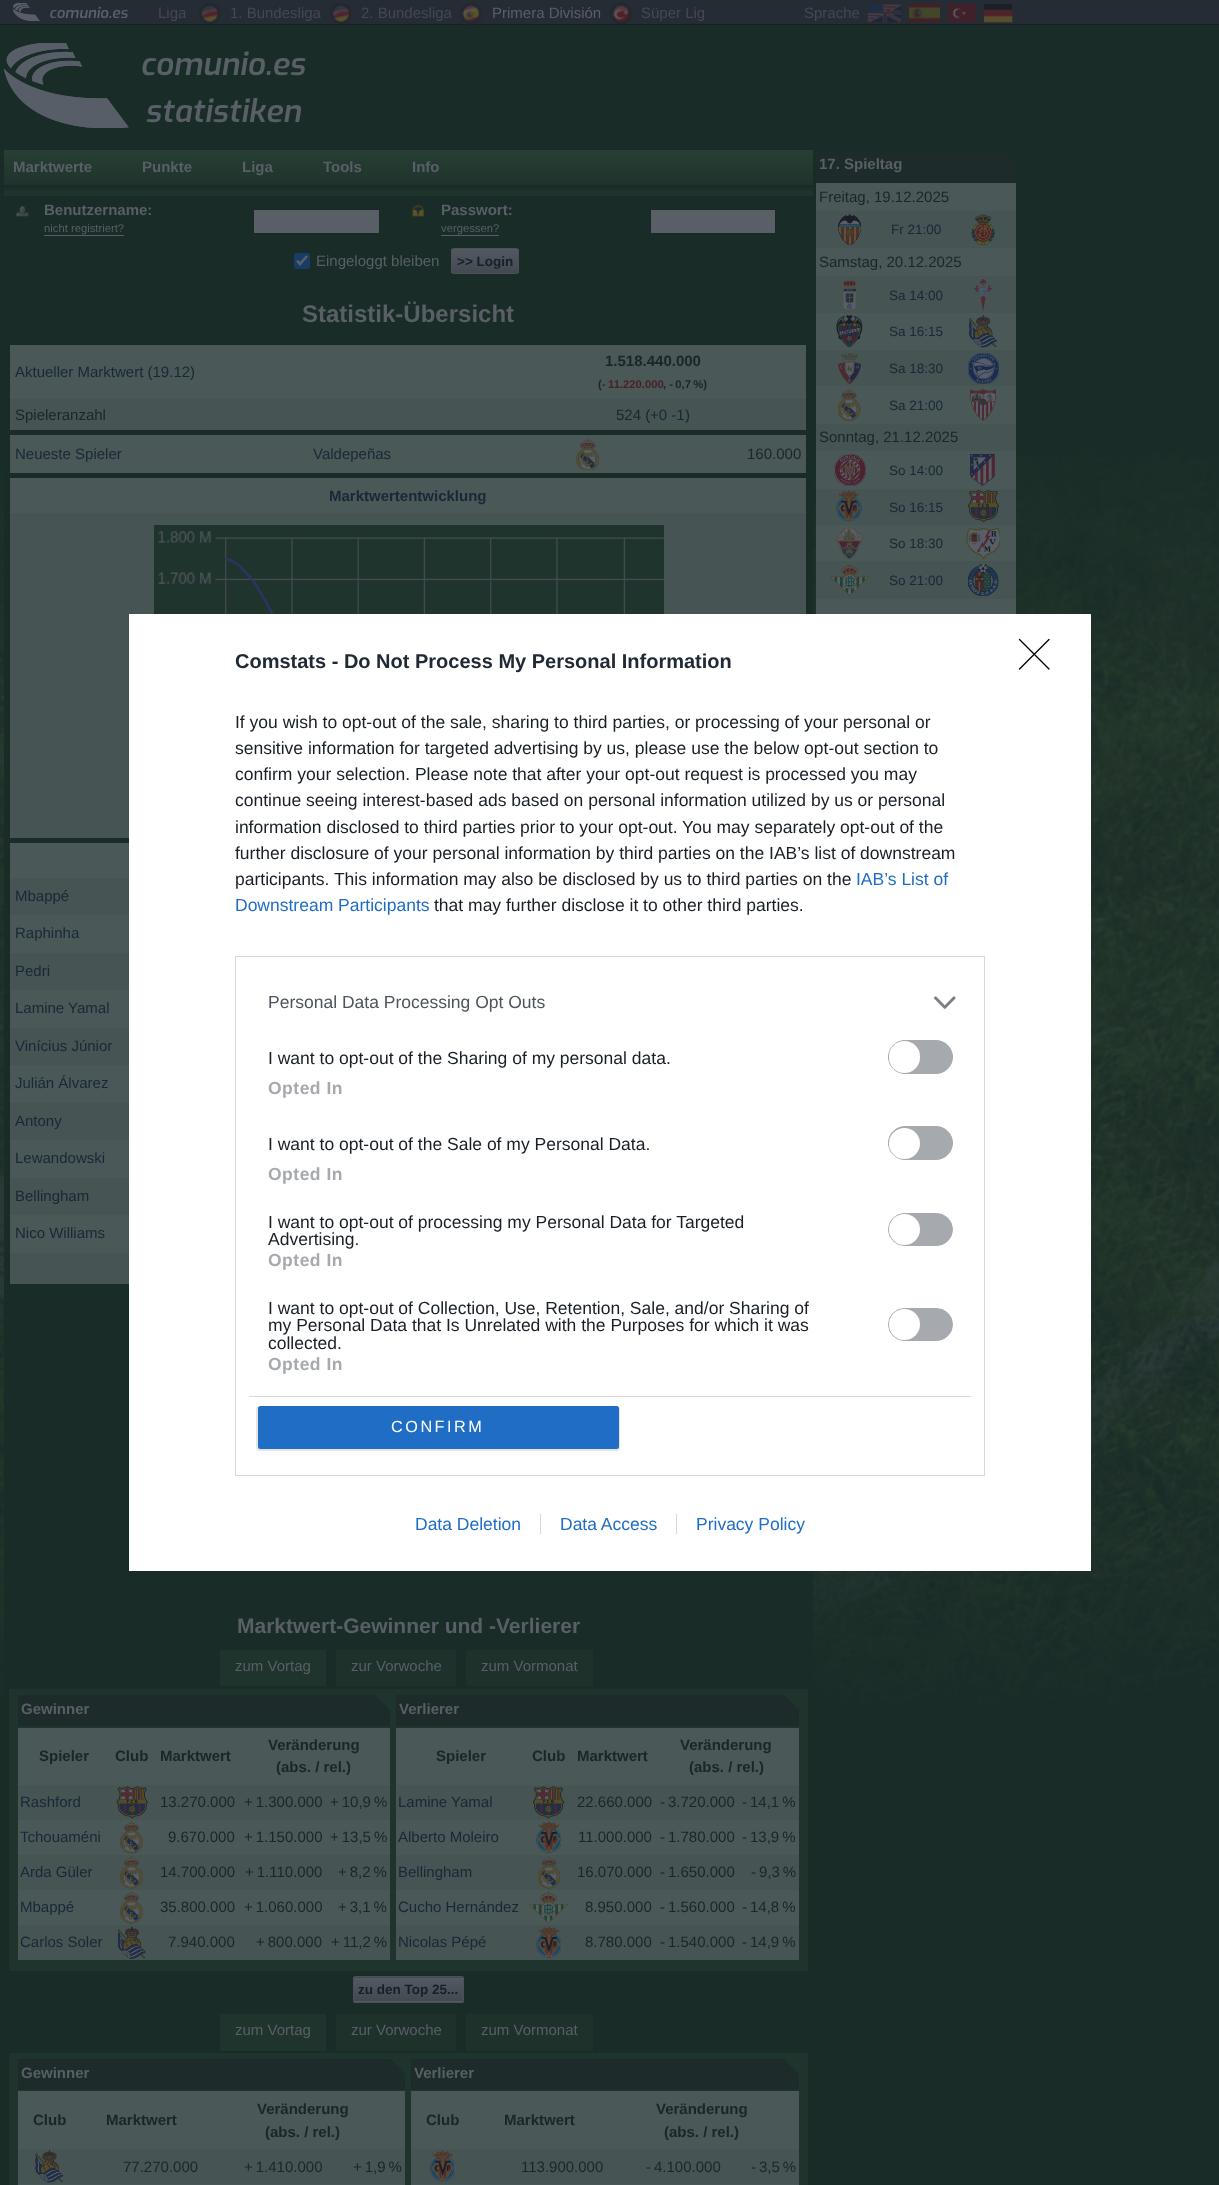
async function draw(canvas) {
  canvas.width = 1219;
  canvas.height = 2185;
  const ctx = canvas.getContext('2d');
  ctx.miterLimit = 4;
  ctx.fontKerning = 'normal';
  function label(s, x, y, font, color) {
    ctx.font = font;
    ctx.fillStyle = color;
    ctx.fillText(s, x, y);
  }
  function rect(x, y, w, h, color) {
    ctx.fillStyle = color;
    ctx.fillRect(x, y, w, h);
  }
  function roundedRect(x, y, w, h, r, color) {
    ctx.fillStyle = color;
    ctx.beginPath();
    ctx.roundRect(x, y, w, h, r);
    ctx.fill();
  }
  async function image(src, x, y, w, h) {
    const img = new Image();
    img.src = src;
    await img.decode();
    ctx.drawImage(img, x, y, w, h);
  }
  let gradient, path;

  rect(0, 0, 1219, 2185, '#192c27');
  await image('assets/img1.png', 0, 441, 1219, 1277);
  rect(0, 0, 1219, 24, '#262c34');
  rect(0, 24, 1219, 1, '#191f27');
  await image('assets/img2.png', 13, 3, 27, 18);
  label('comunio.es', 49, 18, 'italic 600 15px Exo', '#595f67');
  label('Liga', 158, 18, '15px Liberation Sans', '#434952');
  await image('assets/img3.png', 199, 2, 22, 23);
  label('1. Bundesliga', 230, 18, '15px Liberation Sans', '#434952');
  await image('assets/img4.png', 330, 2, 22, 22);
  label('2. Bundesliga', 361, 18, '15px Liberation Sans', '#434952');
  await image('assets/img5.png', 460, 2, 22, 23);
  label('Primera División', 492, 18, '15px Liberation Sans', '#595f67');
  await image('assets/img6.png', 610, 2, 23, 22);
  label('Süper Lig', 641, 18, '15px Liberation Sans', '#434952');
  label('Sprache', 804, 18, '15px Liberation Sans', '#434952');
  await image('assets/img7.png', 867, 3, 35, 20);
  await image('assets/img8.png', 908, 3, 32, 20);
  await image('assets/img9.png', 947, 3, 30, 20);
  await image('assets/img10.png', 983, 4, 30, 19);
  await image('assets/img11.png', 4, 43, 125, 85);
  label('comunio.es', 140, 75, 'italic 600 31.5px Exo', '#595f67');
  label('statistiken', 145, 122, 'italic 600 31.5px Exo', '#595f67');
  rect(4, 185, 809, 11, '#1f342c');
  gradient = ctx.createLinearGradient(408, 150, 408, 185);
  gradient.addColorStop(0, '#283f35');
  gradient.addColorStop(1, '#1f342c');
  ctx.fillStyle = gradient;
  ctx.fillRect(4, 150, 809, 35);
  label('Marktwerte', 13, 172, 'bold 15px Liberation Sans', '#595f67');
  label('Punkte', 142, 172, 'bold 15px Liberation Sans', '#595f67');
  label('Liga', 242, 172, 'bold 15px Liberation Sans', '#595f67');
  label('Tools', 323, 172, 'bold 15px Liberation Sans', '#595f67');
  label('Info', 412, 172, 'bold 15px Liberation Sans', '#595f67');
  await image('assets/img12.png', 3, 185, 810, 6);
  await image('assets/img13.png', 16, 206, 13, 11);
  label('Benutzername:', 44, 215, 'bold 15px Liberation Sans', '#595f67');
  label('nicht registriert?', 44, 232, '11.25px Liberation Sans', '#595f67');
  rect(44, 235, 80, 1, '#595f67');
  ctx.beginPath();
  ctx.rect(253.5, 209.5, 126, 24);
  ctx.fill();
  ctx.strokeStyle = '#192727';
  ctx.stroke();
  await image('assets/img14.png', 412, 205, 12, 12);
  label('Passwort:', 441, 215, 'bold 15px Liberation Sans', '#595f67');
  label('vergessen?', 441, 232, '11.25px Liberation Sans', '#595f67');
  rect(441, 235, 58, 1, '#595f67');
  ctx.beginPath();
  ctx.rect(650.5, 209.5, 125, 24);
  ctx.fill();
  ctx.stroke();
  roundedRect(294, 253, 16, 16, 2.5, '#193c67');
  path = new Path2D('M297 260.5L300 264L307 256');
  ctx.strokeStyle = '#595f67';
  ctx.lineWidth = 2.6;
  ctx.stroke(path);
  label('Eingeloggt bleiben', 316, 266, '15px Liberation Sans', '#595f67');
  ctx.save();
  ctx.beginPath();
  ctx.roundRect(451, 248, 68, 26, 2.5);
  ctx.clip();
  gradient = ctx.createLinearGradient(453, 249, 453, 273);
  gradient.addColorStop(0, '#535961');
  gradient.addColorStop(1, '#434951');
  ctx.fillStyle = gradient;
  ctx.fillRect(451, 249, 68, 24);
  ctx.restore();
  ctx.beginPath();
  ctx.roundRect(451.5, 248.5, 67, 25, 2);
  ctx.strokeStyle = '#4b5159';
  ctx.lineWidth = 1;
  ctx.stroke();
  label('>> Login', 457, 266, 'bold 13.5px Liberation Sans', '#191f27');
  rect(816, 150, 185, 31, '#1d2c2a');
  label('17. Spieltag', 819, 169, 'bold 15px Liberation Sans', '#595f67');
  rect(1001, 164, 15, 17, '#1d2c2a');
  path = new Path2D('M1016 165H1001L1009 157.5Z');
  ctx.fill(path);
  path = new Path2D('M1001 165V150L1009 157.5Z');
  ctx.fill(path);
  rect(816, 183, 200, 28, '#4a5857');
  label('Freitag, 19.12.2025', 819, 202, '15px Liberation Sans', '#192727');
  rect(816, 211, 200, 37, '#475454');
  await image('assets/img15.png', 838, 214, 23, 31);
  label('Fr 21:00', 891, 234, '13.5px Liberation Sans', '#192836');
  await image('assets/img16.png', 971, 214, 24, 31);
  rect(816, 248, 200, 28, '#4a5857');
  label('Samstag, 20.12.2025', 819, 267, '15px Liberation Sans', '#192727');
  rect(816, 276, 200, 37, '#475454');
  await image('assets/img17.png', 843, 279, 13, 32);
  label('Sa 14:00', 889, 300, '13.5px Liberation Sans', '#192836');
  await image('assets/img18.png', 974, 279, 18, 32);
  rect(816, 313, 200, 37, '#4a5857');
  await image('assets/img19.png', 836, 315, 27, 33);
  label('Sa 16:15', 889, 336, '13.5px Liberation Sans', '#192836');
  await image('assets/img20.png', 969, 315, 28, 33);
  rect(816, 350, 200, 36, '#475454');
  await image('assets/img21.png', 838, 353, 23, 31);
  label('Sa 18:30', 889, 373, '13.5px Liberation Sans', '#192836');
  await image('assets/img22.png', 968, 353, 31, 31);
  rect(816, 386, 200, 38, '#4a5857');
  await image('assets/img23.png', 838, 389, 23, 32);
  label('Sa 21:00', 889, 410, '13.5px Liberation Sans', '#192836');
  await image('assets/img24.png', 970, 389, 26, 32);
  rect(816, 424, 200, 27, '#475454');
  label('Sonntag, 21.12.2025', 819, 442, '15px Liberation Sans', '#192727');
  rect(816, 451, 200, 38, '#4a5857');
  await image('assets/img25.png', 834, 454, 32, 32);
  label('So 14:00', 889, 475, '13.5px Liberation Sans', '#192836');
  await image('assets/img26.png', 970, 454, 25, 32);
  rect(816, 489, 200, 36, '#475454');
  await image('assets/img27.png', 836, 490, 26, 32);
  label('So 16:15', 889, 512, '13.5px Liberation Sans', '#192836');
  await image('assets/img28.png', 968, 490, 31, 33);
  rect(816, 525, 200, 36, '#4a5857');
  await image('assets/img29.png', 836, 528, 27, 32);
  label('So 18:30', 889, 548, '13.5px Liberation Sans', '#192836');
  await image('assets/img30.png', 966, 528, 34, 32);
  rect(816, 561, 200, 38, '#475454');
  await image('assets/img31.png', 830, 564, 39, 32);
  label('So 21:00', 889, 585, '13.5px Liberation Sans', '#192836');
  await image('assets/img32.png', 968, 564, 31, 32);
  rect(816, 599, 200, 15, '#4a5857');
  rect(4, 455, 809, 1249, '#192c27');
  label('Statistik-Übersicht', 302, 322, 'bold 24px Liberation Sans', '#595f67');
  rect(10, 399, 796, 31, '#475454');
  rect(10, 345, 796, 54, '#4a5857');
  label('Aktueller Marktwert (19.12)', 15, 377, '15px Liberation Sans', '#192836');
  label('1.518.440.000', 605, 366, 'bold 15px Liberation Sans', '#192727');
  label('(', 598, 388, 'bold 11.25px Liberation Sans', '#192727');
  label('- 11.220.000', 602, 388, 'bold 11.25px Liberation Sans', '#4b1f27');
  label(', - 0,7 %)', 663, 388, 'bold 11.25px Liberation Sans', '#192727');
  label('Spieleranzahl', 15, 420, '15px Liberation Sans', '#192727');
  label('524 (', 616, 420, '15px Liberation Sans', '#192727');
  label('+0 -1', 650, 420, '15px Liberation Sans', '#192836');
  label(')', 685, 420, '15px Liberation Sans', '#192727');
  rect(10, 435, 796, 38, '#4a5857');
  label('Neueste Spieler', 15, 459, '15px Liberation Sans', '#192836');
  label('Valdepeñas', 313, 459, '15px Liberation Sans', '#192836');
  await image('assets/img33.png', 576, 439, 23, 31);
  label('160.000', 747, 459, '15px Liberation Sans', '#192727');
  rect(10, 513, 796, 325, '#475454');
  rect(10, 478, 796, 35, '#4a5857');
  label('Marktwertentwicklung', 329, 501, 'bold 15px Liberation Sans', '#192836');
  rect(154, 525, 510, 89, '#1f342c');
  await image('assets/img34.png', 157, 531, 507, 83);
  rect(10, 878, 119, 406, '#475454');
  rect(10, 843, 119, 35, '#4a5857');
  label('Mbappé', 15, 901, '15px Liberation Sans', '#192836');
  rect(10, 915, 119, 38, '#4a5857');
  label('Raphinha', 15, 938, '15px Liberation Sans', '#192836');
  label('Pedri', 15, 976, '15px Liberation Sans', '#192836');
  rect(10, 990, 119, 38, '#4a5857');
  label('Lamine Yamal', 15, 1013, '15px Liberation Sans', '#192836');
  label('Vinícius Júnior', 15, 1051, '15px Liberation Sans', '#192836');
  rect(10, 1065, 119, 38, '#4a5857');
  label('Julián Álvarez', 15, 1088, '15px Liberation Sans', '#192836');
  label('Antony', 15, 1126, '15px Liberation Sans', '#192836');
  rect(10, 1140, 119, 38, '#4a5857');
  label('Lewandowski', 15, 1163, '15px Liberation Sans', '#192836');
  label('Bellingham', 15, 1201, '15px Liberation Sans', '#192836');
  rect(10, 1215, 119, 38, '#4a5857');
  label('Nico Williams', 15, 1238, '15px Liberation Sans', '#192836');
  label('Marktwert-Gewinner und -Verlierer', 237, 1633, 'bold 21px Liberation Sans', '#595f67');
  rect(220, 1650, 106, 36, '#1f342c');
  label('zum Vortag', 235, 1671, '15px Liberation Sans', '#595f67');
  rect(336, 1650, 120, 36, '#1e312b');
  label('zur Vorwoche', 351, 1671, '15px Liberation Sans', '#595f67');
  rect(466, 1650, 127, 36, '#1e312b');
  label('zum Vormonat', 481, 1671, '15px Liberation Sans', '#595f67');
  rect(9, 1689, 799, 282, '#1f342c');
  rect(18, 1695, 357, 31, '#1d2c2a');
  label('Gewinner', 21, 1714, 'bold 15px Liberation Sans', '#595f67');
  rect(375, 1709, 15, 17, '#1d2c2a');
  path = new Path2D('M390 1710H375L382.5 1702.5Z');
  ctx.fill(path);
  path = new Path2D('M375 1710V1695L382.5 1702.5Z');
  ctx.fill(path);
  rect(18, 1785, 372, 175, '#475454');
  rect(18, 1728, 372, 57, '#4a5857');
  label('Spieler', 39, 1761, 'bold 15px Liberation Sans', '#192727');
  label('Club', 115, 1761, 'bold 15px Liberation Sans', '#192727');
  label('Marktwert', 160, 1761, 'bold 15px Liberation Sans', '#192727');
  label('Veränderung', 268, 1750, 'bold 15px Liberation Sans', '#192727');
  label('(abs. / rel.)', 276, 1772, 'bold 15px Liberation Sans', '#192727');
  label('Rashford', 20, 1807, '15px Liberation Sans', '#192836');
  await image('assets/img35.png', 116, 1786, 32, 33);
  label('13.270.000', 160, 1807, '15px Liberation Sans', '#192727');
  label('+ 1.300.000', 244, 1807, '15px Liberation Sans', '#192727');
  label('+ 10,9 %', 330, 1807, '15px Liberation Sans', '#192727');
  rect(18, 1820, 372, 35, '#4a5857');
  label('Tchouaméni', 20, 1842, '15px Liberation Sans', '#192836');
  await image('assets/img36.png', 120, 1821, 23, 33);
  label('9.670.000', 168, 1842, '15px Liberation Sans', '#192727');
  label('+ 1.150.000', 244, 1842, '15px Liberation Sans', '#192727');
  label('+ 13,5 %', 330, 1842, '15px Liberation Sans', '#192727');
  label('Arda Güler', 20, 1877, '15px Liberation Sans', '#192836');
  await image('assets/img37.png', 120, 1856, 23, 33);
  label('14.700.000', 160, 1877, '15px Liberation Sans', '#192727');
  label('+ 1.110.000', 245, 1877, '15px Liberation Sans', '#192727');
  label('+ 8,2 %', 338, 1877, '15px Liberation Sans', '#192727');
  rect(18, 1890, 372, 35, '#4a5857');
  label('Mbappé', 20, 1912, '15px Liberation Sans', '#192836');
  await image('assets/img36.png', 120, 1891, 23, 33);
  label('35.800.000', 160, 1912, '15px Liberation Sans', '#192727');
  label('+ 1.060.000', 244, 1912, '15px Liberation Sans', '#192727');
  label('+ 3,1 %', 338, 1912, '15px Liberation Sans', '#192727');
  label('Carlos Soler', 20, 1947, '15px Liberation Sans', '#192836');
  await image('assets/img38.png', 118, 1926, 28, 33);
  label('7.940.000', 168, 1947, '15px Liberation Sans', '#192727');
  label('+ 800.000', 256, 1947, '15px Liberation Sans', '#192727');
  label('+ 11,2 %', 331, 1947, '15px Liberation Sans', '#192727');
  rect(396, 1695, 388, 31, '#1d2c2a');
  label('Verlierer', 399, 1714, 'bold 15px Liberation Sans', '#595f67');
  rect(784, 1709, 15, 17, '#1d2c2a');
  path = new Path2D('M799 1710H784L791 1702.5Z');
  ctx.fill(path);
  path = new Path2D('M784 1710V1695L791 1702.5Z');
  ctx.fill(path);
  rect(396, 1785, 403, 175, '#475454');
  rect(396, 1728, 403, 57, '#4a5857');
  label('Spieler', 436, 1761, 'bold 15px Liberation Sans', '#192727');
  label('Club', 532, 1761, 'bold 15px Liberation Sans', '#192727');
  label('Marktwert', 577, 1761, 'bold 15px Liberation Sans', '#192727');
  label('Veränderung', 680, 1750, 'bold 15px Liberation Sans', '#192727');
  label('(abs. / rel.)', 689, 1772, 'bold 15px Liberation Sans', '#192727');
  label('Lamine Yamal', 398, 1807, '15px Liberation Sans', '#192836');
  await image('assets/img39.png', 533, 1786, 32, 33);
  label('22.660.000', 577, 1807, '15px Liberation Sans', '#192727');
  label('- 3.720.000', 660, 1807, '15px Liberation Sans', '#192727');
  label('- 14,1 %', 742, 1807, '15px Liberation Sans', '#192727');
  rect(396, 1820, 403, 35, '#4a5857');
  label('Alberto Moleiro', 398, 1842, '15px Liberation Sans', '#192836');
  await image('assets/img40.png', 536, 1821, 25, 33);
  label('11.000.000', 578, 1842, '15px Liberation Sans', '#192727');
  label('- 1.780.000', 660, 1842, '15px Liberation Sans', '#192727');
  label('- 13,9 %', 742, 1842, '15px Liberation Sans', '#192727');
  label('Bellingham', 398, 1877, '15px Liberation Sans', '#192836');
  await image('assets/img41.png', 538, 1856, 22, 33);
  label('16.070.000', 577, 1877, '15px Liberation Sans', '#192727');
  label('- 1.650.000', 660, 1877, '15px Liberation Sans', '#192727');
  label('- 9,3 %', 751, 1877, '15px Liberation Sans', '#192727');
  rect(396, 1890, 403, 35, '#4a5857');
  label('Cucho Hernández', 398, 1912, '15px Liberation Sans', '#192836');
  await image('assets/img42.png', 529, 1891, 39, 33);
  label('8.950.000', 585, 1912, '15px Liberation Sans', '#192727');
  label('- 1.560.000', 660, 1912, '15px Liberation Sans', '#192727');
  label('- 14,8 %', 742, 1912, '15px Liberation Sans', '#192727');
  label('Nicolas Pépé', 398, 1947, '15px Liberation Sans', '#192836');
  await image('assets/img43.png', 536, 1926, 25, 33);
  label('8.780.000', 585, 1947, '15px Liberation Sans', '#192727');
  label('- 1.540.000', 660, 1947, '15px Liberation Sans', '#192727');
  label('- 14,9 %', 742, 1947, '15px Liberation Sans', '#192727');
  ctx.save();
  ctx.beginPath();
  ctx.roundRect(353, 1976, 111, 27, 2.5);
  ctx.clip();
  gradient = ctx.createLinearGradient(354, 1954, 354, 1978);
  gradient.addColorStop(0, '#535961');
  gradient.addColorStop(1, '#434951');
  ctx.fillStyle = gradient;
  ctx.fillRect(353, 1976, 111, 2);
  ctx.restore();
  gradient = ctx.createLinearGradient(354, 1978, 354, 2001);
  gradient.addColorStop(0, '#535961');
  gradient.addColorStop(1, '#434951');
  ctx.fillStyle = gradient;
  ctx.fillRect(353, 1978, 111, 23);
  ctx.save();
  ctx.beginPath();
  ctx.roundRect(353, 1976, 111, 27, 2.5);
  ctx.clip();
  gradient = ctx.createLinearGradient(354, 2001, 354, 2025);
  gradient.addColorStop(0, '#535961');
  gradient.addColorStop(1, '#434951');
  ctx.fillStyle = gradient;
  ctx.fillRect(353, 2001, 111, 2);
  ctx.restore();
  ctx.fillStyle = '#595f6733';
  path = new Path2D('M355 1979H461C462 1979 462 1979 462 1980V2001C463 2001 463 2001 463 2000V1979C463 1978 463 1978 462 1978H355C354 1978 354 1978 354 1979V1980C354 1979 354 1979 355 1979Z');
  ctx.fill(path);
  ctx.beginPath();
  ctx.roundRect(353.5, 1976.5, 110, 26, 2);
  ctx.stroke();
  label('zu den Top 25...', 358, 1994, 'bold 13.5px Liberation Sans', '#191f27');
  rect(220, 2014, 106, 37, '#1f342c');
  label('zum Vortag', 235, 2035, '15px Liberation Sans', '#595f67');
  rect(336, 2014, 120, 37, '#1e312b');
  label('zur Vorwoche', 351, 2035, '15px Liberation Sans', '#595f67');
  rect(466, 2014, 127, 37, '#1e312b');
  label('zum Vormonat', 481, 2035, '15px Liberation Sans', '#595f67');
  rect(9, 2053, 799, 132, '#1f342c');
  rect(18, 2059, 372, 31, '#1d2c2a');
  label('Gewinner', 21, 2078, 'bold 15px Liberation Sans', '#595f67');
  rect(390, 2073, 15, 17, '#1d2c2a');
  path = new Path2D('M405 2074H390L397.5 2066Z');
  ctx.fill(path);
  path = new Path2D('M390 2074V2059L397.5 2066Z');
  ctx.fill(path);
  rect(18, 2149, 387, 35, '#475454');
  rect(18, 2091, 387, 58, '#4a5857');
  label('Club', 33, 2125, 'bold 15px Liberation Sans', '#192727');
  label('Marktwert', 106, 2125, 'bold 15px Liberation Sans', '#192727');
  label('Veränderung', 257, 2114, 'bold 15px Liberation Sans', '#192727');
  label('(abs. / rel.)', 265, 2137, 'bold 15px Liberation Sans', '#192727');
  await image('assets/img44.png', 35, 2150, 29, 33);
  label('77.270.000', 123, 2172, '15px Liberation Sans', '#192727');
  label('+ 1.410.000', 244, 2172, '15px Liberation Sans', '#192727');
  label('+ 1,9 %', 353, 2172, '15px Liberation Sans', '#192727');
  rect(18, 2184, 387, 1, '#4a5857');
  rect(411, 2059, 373, 31, '#1d2c2a');
  label('Verlierer', 414, 2078, 'bold 15px Liberation Sans', '#595f67');
  rect(784, 2073, 15, 17, '#1d2c2a');
  path = new Path2D('M799 2074H784L791 2066Z');
  ctx.fill(path);
  path = new Path2D('M784 2074V2059L791 2066Z');
  ctx.fill(path);
  rect(411, 2149, 388, 35, '#475454');
  rect(411, 2091, 388, 58, '#4a5857');
  label('Club', 426, 2125, 'bold 15px Liberation Sans', '#192727');
  label('Marktwert', 504, 2125, 'bold 15px Liberation Sans', '#192727');
  label('Veränderung', 656, 2114, 'bold 15px Liberation Sans', '#192727');
  label('(abs. / rel.)', 664, 2137, 'bold 15px Liberation Sans', '#192727');
  await image('assets/img45.png', 430, 2150, 25, 33);
  label('113.900.000', 521, 2172, '15px Liberation Sans', '#192727');
  label('- 4.100.000', 646, 2172, '15px Liberation Sans', '#192727');
  label('- 3,5 %', 751, 2172, '15px Liberation Sans', '#192727');
  rect(411, 2184, 388, 1, '#4a5857');
  rect(129, 614, 962, 957, '#fff');
  label('Comstats - Do Not Process My Personal Information', 235, 668, 'bold 20px Liberation Sans', '#212934');
  label('If you wish to opt-out of the sale, sharing to third parties, or processing of your personal or', 235, 728, '17.5px Liberation Sans', '#191f27');
  label('sensitive information for targeted advertising by us, please use the below opt-out section to', 235, 754, '17.5px Liberation Sans', '#191f27');
  label('confirm your selection. Please note that after your opt-out request is processed you may', 235, 780, '17.5px Liberation Sans', '#191f27');
  label('continue seeing interest-based ads based on personal information utilized by us or personal', 235, 806, '17.5px Liberation Sans', '#191f27');
  label('information disclosed to third parties prior to your opt-out. You may separately opt-out of the', 235, 833, '17.5px Liberation Sans', '#191f27');
  label('further disclosure of your personal information by third parties on the IAB’s list of downstream', 235, 859, '17.5px Liberation Sans', '#191f27');
  label('participants. This information may also be disclosed by us to third parties on the', 235, 885, '17.5px Liberation Sans', '#191f27');
  label('IAB’s List of', 856, 885, '17.5px Liberation Sans', '#206dc5');
  label('Downstream Participants', 235, 911, '17.5px Liberation Sans', '#206dc5');
  label('that may further disclose it to other third parties.', 434, 911, '17.5px Liberation Sans', '#191f27');
  ctx.strokeStyle = '#d8d8d8';
  ctx.strokeRect(235.5, 956.5, 749, 519);
  rect(249, 1396, 722, 1, '#d8d8d8');
  label('Personal Data Processing Opt Outs', 268, 1008, '17.5px Liberation Sans', '#4d545d');
  await image('assets/img46.png', 934, 996, 22, 13);
  label('I want to opt-out of the Sharing of my personal data.', 268, 1064, '17.5px Liberation Sans', '#191f27');
  ctx.fillStyle = '#a6a9ae';
  ctx.beginPath();
  ctx.roundRect(888.5, 1040.5, 64, 33, 16.5);
  ctx.fill();
  ctx.strokeStyle = '#a6a9ae';
  ctx.stroke();
  roundedRect(889, 1041, 31, 32, 15.5, '#fff');
  ctx.letterSpacing = '0.5px';
  label('Opted In', 268, 1094, 'bold 17.5px Liberation Sans', '#a6a9ae');
  ctx.letterSpacing = '0px';
  label('I want to opt-out of the Sale of my Personal Data.', 268, 1150, '17.5px Liberation Sans', '#191f27');
  ctx.fillStyle = '#a6a9ae';
  ctx.beginPath();
  ctx.roundRect(888.5, 1126.5, 64, 33, 16.5);
  ctx.fill();
  ctx.stroke();
  ctx.fillStyle = '#fff';
  ctx.beginPath();
  ctx.arc(904.5, 1143.5, 15.5, 0, 2 * Math.PI);
  ctx.fill();
  ctx.letterSpacing = '0.5px';
  label('Opted In', 268, 1180, 'bold 17.5px Liberation Sans', '#a6a9ae');
  ctx.letterSpacing = '0px';
  label('I want to opt-out of processing my Personal Data for Targeted', 268, 1228, '17.5px Liberation Sans', '#191f27');
  label('Advertising.', 268, 1245, '17.5px Liberation Sans', '#191f27');
  ctx.fillStyle = '#a6a9ae';
  ctx.beginPath();
  ctx.roundRect(888.5, 1213.5, 64, 32, 16);
  ctx.fill();
  ctx.stroke();
  ctx.fillStyle = '#fff';
  ctx.beginPath();
  ctx.arc(904.5, 1229.5, 15.5, 0, 2 * Math.PI);
  ctx.fill();
  ctx.letterSpacing = '0.5px';
  label('Opted In', 268, 1266, 'bold 17.5px Liberation Sans', '#a6a9ae');
  ctx.letterSpacing = '0px';
  label('I want to opt-out of Collection, Use, Retention, Sale, and/or Sharing of', 268, 1314, '17.5px Liberation Sans', '#191f27');
  label('my Personal Data that Is Unrelated with the Purposes for which it was', 268, 1331, '17.5px Liberation Sans', '#191f27');
  label('collected.', 268, 1349, '17.5px Liberation Sans', '#191f27');
  ctx.fillStyle = '#a6a9ae';
  ctx.beginPath();
  ctx.roundRect(888.5, 1308.5, 64, 32, 16);
  ctx.fill();
  ctx.stroke();
  ctx.fillStyle = '#fff';
  ctx.beginPath();
  ctx.arc(904.5, 1324.5, 15.5, 0, 2 * Math.PI);
  ctx.fill();
  ctx.letterSpacing = '0.5px';
  label('Opted In', 268, 1370, 'bold 17.5px Liberation Sans', '#a6a9ae');
  ctx.fillStyle = '#0000001a';
  ctx.filter = 'blur(0.5px)';
  ctx.beginPath();
  ctx.roundRect(256, 1406, 364, 45, 4);
  ctx.fill();
  ctx.filter = 'none';
  roundedRect(258, 1406, 361, 43, 2.5, '#206dc5');
  ctx.letterSpacing = '2.5px';
  label('CONFIRM', 391, 1432, '16.25px Liberation Sans', '#fff');
  path = new Path2D('M1019.5 639.5L1049 669M1049 639.5L1019.5 669');
  ctx.strokeStyle = '#000';
  ctx.lineWidth = 1.3;
  ctx.lineCap = 'round';
  ctx.lineJoin = 'round';
  ctx.stroke(path);
  ctx.letterSpacing = '0px';
  label('Data Deletion', 415, 1530, '17.5px Liberation Sans', '#206dc5');
  label('Data Access', 560, 1530, '17.5px Liberation Sans', '#206dc5');
  rect(540, 1514, 1, 20, '#d8d8d8');
  label('Privacy Policy', 696, 1530, '17.5px Liberation Sans', '#206dc5');
  rect(676, 1514, 1, 20, '#d8d8d8');
}

draw(document.querySelector('canvas'));
